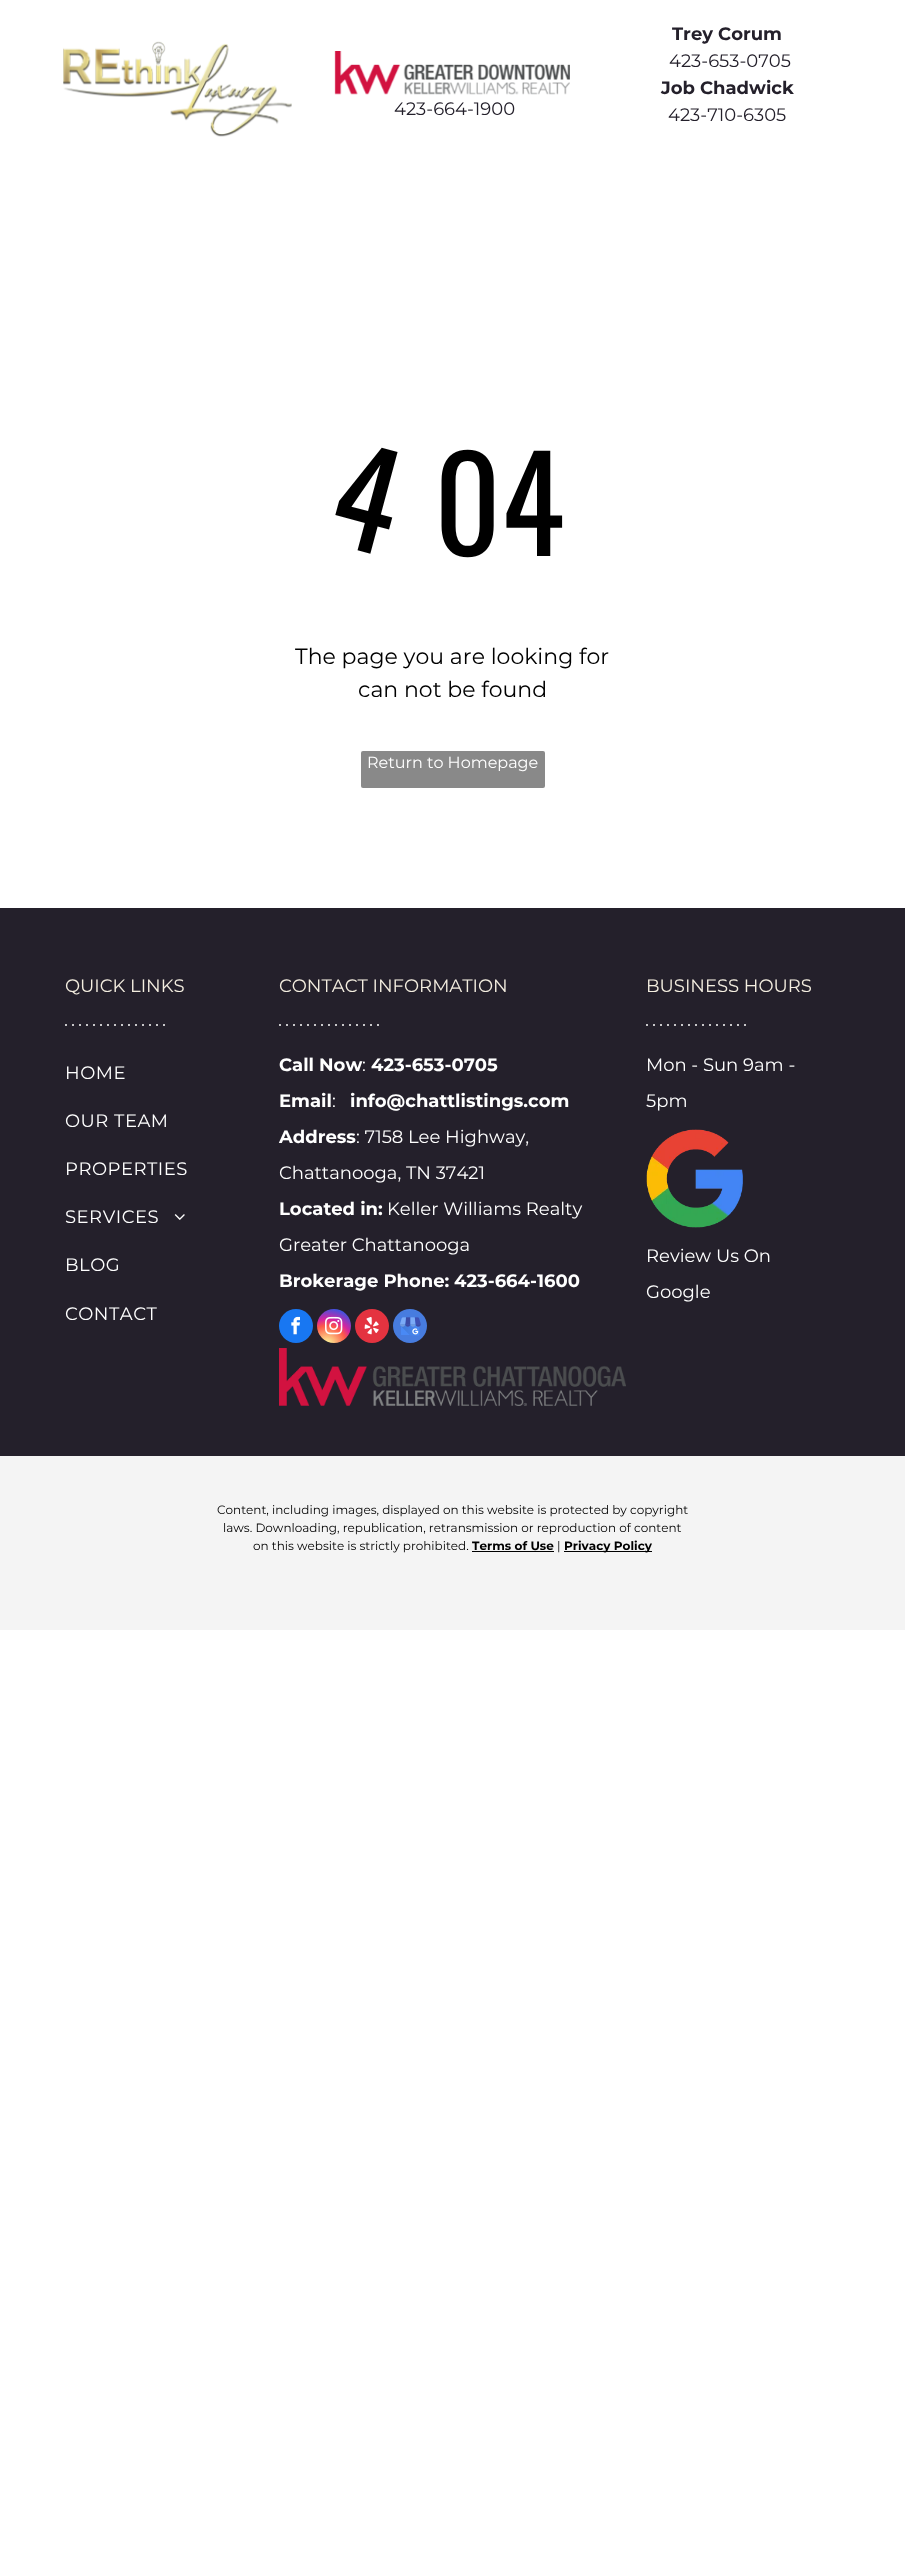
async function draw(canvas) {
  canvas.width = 905;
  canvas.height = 2572;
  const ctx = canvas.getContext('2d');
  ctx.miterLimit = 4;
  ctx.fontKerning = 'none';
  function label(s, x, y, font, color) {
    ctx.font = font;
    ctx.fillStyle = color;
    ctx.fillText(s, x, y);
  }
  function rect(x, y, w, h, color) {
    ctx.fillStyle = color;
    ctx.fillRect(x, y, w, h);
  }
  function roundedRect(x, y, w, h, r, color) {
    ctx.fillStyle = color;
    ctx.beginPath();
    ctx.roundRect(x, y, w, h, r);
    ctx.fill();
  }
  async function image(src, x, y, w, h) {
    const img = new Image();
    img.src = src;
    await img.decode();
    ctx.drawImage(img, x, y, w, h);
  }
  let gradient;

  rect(0, 0, 905, 2572, '#fff');
  await image('assets/img1.png', 63, 41, 229, 96);
  await image('assets/img2.png', 334, 51, 236, 44);
  label('423-664-1900', 394, 115, '18px Montserrat', '#24202b');
  label('Trey Corum', 672, 40, 'bold 18px Montserrat', '#24202b');
  label('423-653-0705', 669, 67, '18px Montserrat', '#24202b');
  label('Job Chadwick', 661, 94, 'bold 18px Montserrat', '#24202b');
  label('423-710-6305', 668, 121, '18px Montserrat', '#24202b');
  ctx.font = '130px Oswald';
  ctx.fillStyle = '#000';
  ctx.save();
  ctx.translate(323, 541);
  ctx.rotate(15 * Math.PI / 180);
  ctx.fillText('4', 0, 0);
  ctx.restore();
  label('04', 434, 556, '130px Oswald', '#000');
  label('The page you are looking for', 295, 664, '22px Montserrat', '#000');
  label('can not be found', 358, 697, '22px Montserrat', '#000');
  roundedRect(361, 751, 184, 37, 2, '#898989');
  label('Return to Homepage', 367, 768, '16px Montserrat', '#fff');
  rect(0, 908, 905, 548, '#24202b');
  label('QUICK LINKS', 65, 992, '18px Montserrat', '#f4eee0');
  await image('assets/img3.png', 65, 1024, 100, 2);
  ctx.letterSpacing = '0.5px';
  label('HOME', 65, 1079, '18px Montserrat', '#fff');
  label('OUR TEAM', 65, 1127, '18px Montserrat', '#fff');
  label('PROPERTIES', 65, 1175, '18px Montserrat', '#fff');
  label('SERVICES', 65, 1223, '18px Montserrat', '#fff');
  await image('assets/img4.png', 174, 1214, 11, 6);
  label('BLOG', 65, 1271, '18px Montserrat', '#fff');
  label('CONTACT', 65, 1320, '18px Montserrat', '#fff');
  ctx.letterSpacing = '0px';
  label('CONTACT INFORMATION', 279, 992, '18px Montserrat', '#f4eee0');
  await image('assets/img3.png', 279, 1024, 100, 2);
  label('Call Now', 279, 1071, 'bold 18px Montserrat', '#fff');
  label(':', 362, 1071, '18px Montserrat', '#fff');
  label('423-653-0705', 371, 1071, 'bold 18px Montserrat', '#fff');
  label('Email', 279, 1107, 'bold 18px Montserrat', '#fff');
  label(':', 332, 1107, '18px Montserrat', '#fff');
  label('info@chattlistings.com', 350, 1107, 'bold 18px Montserrat', '#fff');
  label('Address', 279, 1143, 'bold 18px Montserrat', '#fff');
  label(': 7158 Lee Highway,', 356, 1143, '18px Montserrat', '#fff');
  label('Chattanooga, TN 37421', 279, 1179, '18px Montserrat', '#fff');
  label('Located in:', 279, 1215, 'bold 18px Montserrat', '#fff');
  label('Keller Williams Realty', 387, 1215, '18px Montserrat', '#fff');
  label('Greater Chattanooga', 279, 1251, '18px Montserrat', '#fff');
  label('Brokerage Phone:', 279, 1287, 'bold 18px Montserrat', '#fff');
  label('423-664-1600', 454, 1287, 'bold 18px Montserrat', '#fff');
  ctx.fillStyle = '#1877f2';
  ctx.beginPath();
  ctx.arc(296, 1326, 17, 0, 2 * Math.PI);
  ctx.fill();
  await image('assets/img5.png', 291, 1316, 9, 19);
  gradient = ctx.createRadialGradient(327, 1345, 0, 327, 1345, 43);
  gradient.addColorStop(0, '#fdf497');
  gradient.addColorStop(0.05, '#fdf497');
  gradient.addColorStop(0.45, '#fd5949');
  gradient.addColorStop(0.6, '#d6249f');
  gradient.addColorStop(0.9, '#285aeb');
  ctx.fillStyle = gradient;
  ctx.beginPath();
  ctx.arc(334, 1326, 17, 0, 2 * Math.PI);
  ctx.fill();
  await image('assets/img6.png', 325, 1316, 18, 19);
  ctx.fillStyle = '#e43340';
  ctx.beginPath();
  ctx.arc(372, 1326, 17, 0, 2 * Math.PI);
  ctx.fill();
  await image('assets/img7.png', 364, 1317, 15, 18);
  ctx.fillStyle = '#477cdf';
  ctx.beginPath();
  ctx.arc(410, 1326, 17, 0, 2 * Math.PI);
  ctx.fill();
  await image('assets/img8.png', 400, 1317, 21, 19);
  await image('assets/img9.png', 279, 1348, 347, 58);
  label('BUSINESS HOURS', 646, 992, '18px Montserrat', '#f4eee0');
  await image('assets/img3.png', 646, 1024, 100, 2);
  label('Mon - Sun 9am -', 646, 1071, '18px Montserrat', '#fff');
  label('5pm', 646, 1107, '18px Montserrat', '#fff');
  await image('assets/img10.png', 646, 1129, 97, 99);
  label('Review Us On', 646, 1262, '18px Montserrat', '#fff');
  label('Google', 646, 1298, '18px Montserrat', '#fff');
  rect(0, 1456, 905, 174, '#f4f4f4');
  label('Content, including images, displayed on this website is protected by copyright', 217, 1514, '12px Montserrat', '#000');
  label('laws. Downloading, republication, retransmission or reproduction of content', 223, 1532, '12px Montserrat', '#000');
  label('on this website is strictly prohibited.', 253, 1550, '12px Montserrat', '#000');
  label('Terms of Use', 472, 1550, 'bold 12px Montserrat', '#000');
  rect(472, 1551, 82, 1, '#000');
  label('|', 557, 1550, '12px Montserrat', '#000');
  rect(564, 1551, 88, 1, '#000');
  label('Privacy Policy', 564, 1550, 'bold 12px Montserrat', '#000');
}

draw(document.querySelector('canvas'));
